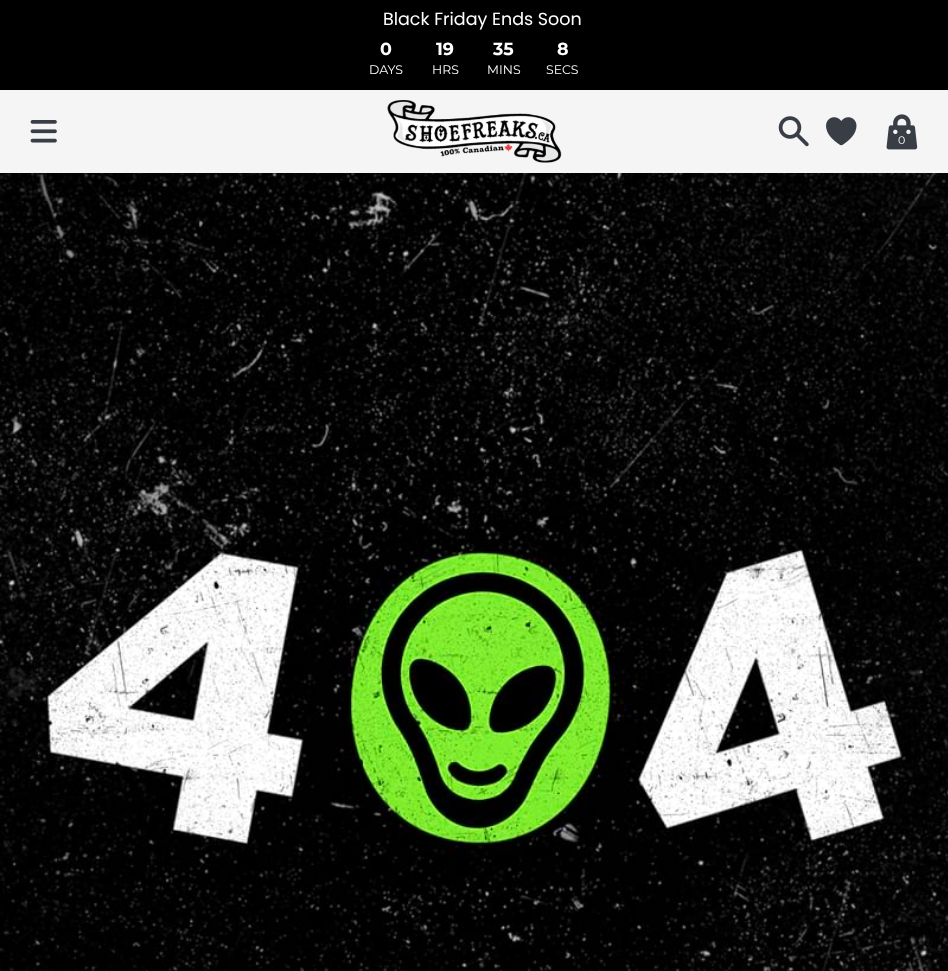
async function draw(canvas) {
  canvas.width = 948;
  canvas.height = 971;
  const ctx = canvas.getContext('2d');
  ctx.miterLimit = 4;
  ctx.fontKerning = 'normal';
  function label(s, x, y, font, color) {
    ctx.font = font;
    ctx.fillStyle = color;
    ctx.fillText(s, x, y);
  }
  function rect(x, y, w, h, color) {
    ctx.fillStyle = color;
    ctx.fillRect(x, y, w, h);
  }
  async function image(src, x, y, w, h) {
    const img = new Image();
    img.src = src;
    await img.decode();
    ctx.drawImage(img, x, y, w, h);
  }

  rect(0, 0, 948, 971, '#000');
  label('Black Friday Ends Soon ', 383, 25, '17.5px Poppins', '#fff');
  label('0', 380, 55, 'bold 17.5px Montserrat', '#fff');
  label('DAYS', 369, 74, '12.5px Montserrat', '#fff');
  label('19', 436, 55, 'bold 17.5px Montserrat', '#fff');
  label('HRS', 432, 74, '12.5px Montserrat', '#fff');
  label('35', 493, 55, 'bold 17.5px Montserrat', '#fff');
  label('MINS', 487, 74, '12.5px Montserrat', '#fff');
  label('8', 557, 55, 'bold 17.5px Montserrat', '#fff');
  label('SECS', 546, 74, '12.5px Montserrat', '#fff');
  rect(0, 90, 948, 83, '#f5f5f5');
  await image('assets/img1.png', 30, 120, 27, 23);
  await image('assets/img2.png', 387, 100, 175, 63);
  await image('assets/img3.png', 778, 116, 31, 31);
  await image('assets/img4.png', 826, 117, 31, 29);
  await image('assets/img5.png', 886, 114, 32, 36);
  label('0', 898, 144, '11px Montserrat', '#fff');
  await image('assets/img6.png', 0, 173, 948, 798);
}

draw(document.querySelector('canvas'));
